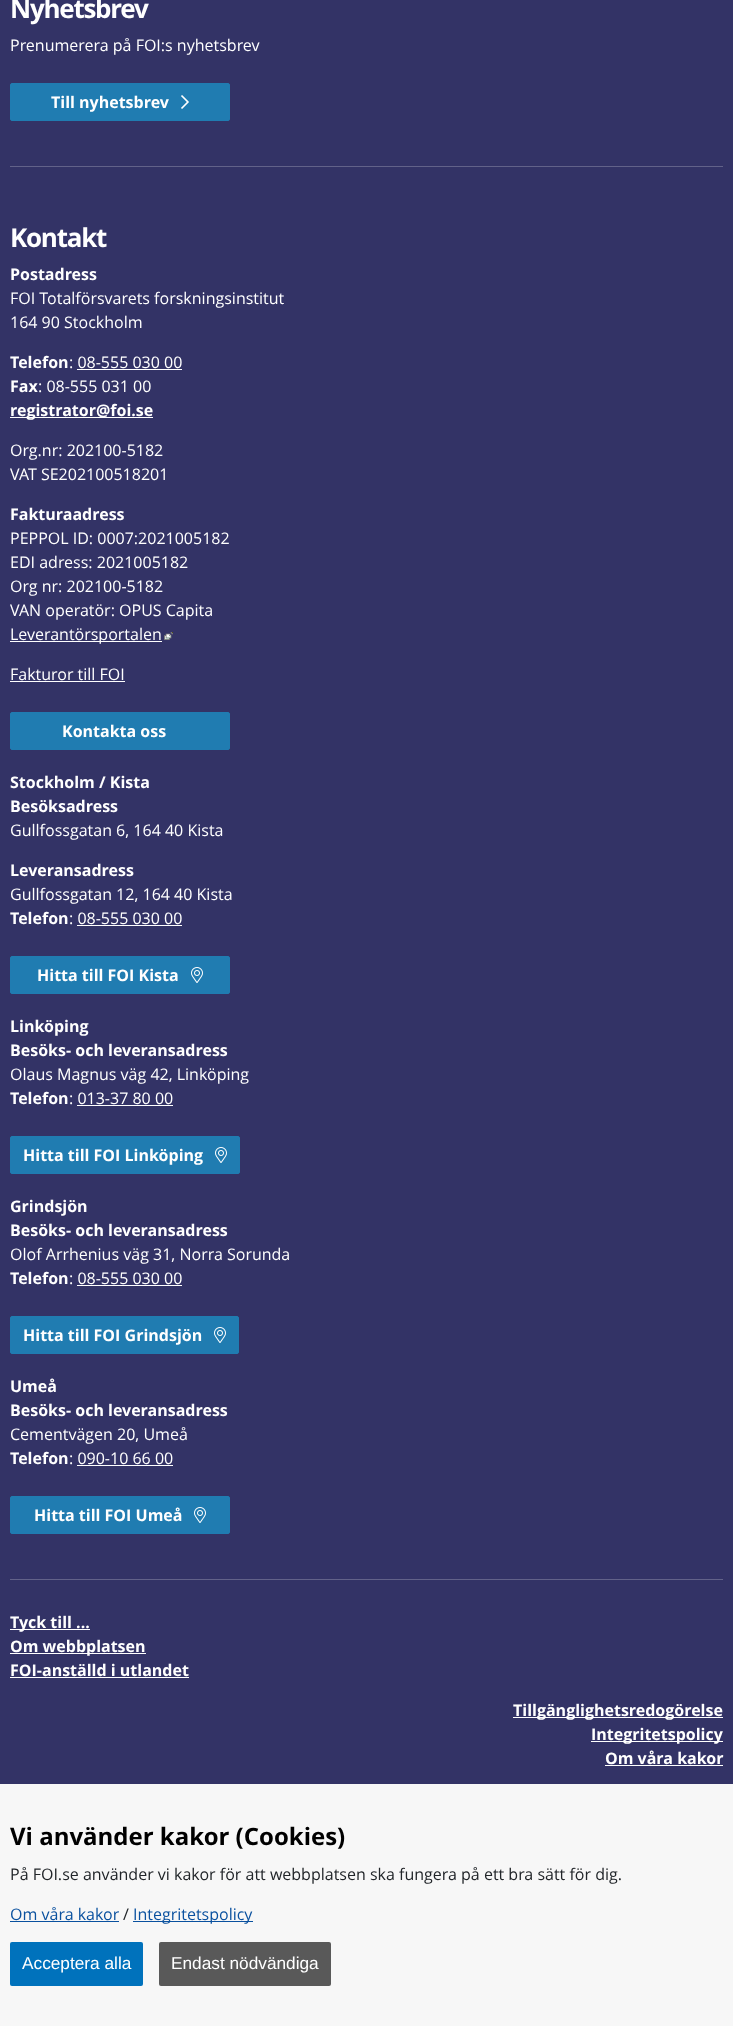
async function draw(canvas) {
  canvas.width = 733;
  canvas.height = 2026;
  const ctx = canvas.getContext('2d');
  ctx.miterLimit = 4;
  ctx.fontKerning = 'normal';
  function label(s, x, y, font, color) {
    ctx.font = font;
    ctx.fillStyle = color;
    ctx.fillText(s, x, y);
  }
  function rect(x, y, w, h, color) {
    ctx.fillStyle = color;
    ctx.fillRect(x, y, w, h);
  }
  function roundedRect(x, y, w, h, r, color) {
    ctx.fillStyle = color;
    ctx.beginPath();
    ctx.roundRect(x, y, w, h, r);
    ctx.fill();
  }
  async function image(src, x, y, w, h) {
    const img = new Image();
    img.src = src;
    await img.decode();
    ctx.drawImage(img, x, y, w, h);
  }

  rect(0, 0, 733, 2026, '#336');
  ctx.letterSpacing = '-1.25px';
  label('Nyhetsbrev', 10, 18, 'bold 26px Open Sans', '#fff');
  ctx.letterSpacing = '0px';
  label('Prenumerera på FOI:s nyhetsbrev', 10, 51, '16px Open Sans', '#fff');
  ctx.fillStyle = '#207cb1';
  ctx.beginPath();
  ctx.roundRect(10.5, 83.5, 219, 37, 1.5);
  ctx.fill();
  ctx.strokeStyle = '#207cb1';
  ctx.stroke();
  label('Till nyhetsbrev', 51, 108, 'bold 16px Open Sans', '#fff');
  await image('assets/img1.png', 181, 95, 8, 14);
  rect(10, 166, 713, 1, '#626289');
  ctx.letterSpacing = '-1.25px';
  label('Kontakt', 10, 247, 'bold 26px Open Sans', '#fff');
  ctx.letterSpacing = '0px';
  label('Postadress', 10, 280, 'bold 16px Open Sans', '#fff');
  label('FOI Totalförsvarets forskningsinstitut', 10, 304, '16px Open Sans', '#fff');
  label('164 90 Stockholm', 10, 328, '16px Open Sans', '#fff');
  label('Telefon', 10, 368, 'bold 16px Open Sans', '#fff');
  label(': 08-555 030 00', 69, 368, '16px Open Sans', '#fff');
  rect(77, 369, 105, 1, '#fff');
  label('Fax', 10, 392, 'bold 16px Open Sans', '#fff');
  label(': 08-555 031 00', 38, 392, '16px Open Sans', '#fff');
  rect(10, 417, 143, 1, '#fff');
  label('registrator@foi.se', 10, 416, 'bold 16px Open Sans', '#fff');
  label('Org.nr: 202100-5182', 10, 456, '16px Open Sans', '#fff');
  label('VAT SE202100518201', 10, 480, '16px Open Sans', '#fff');
  label('Fakturaadress', 10, 520, 'bold 16px Open Sans', '#fff');
  label('PEPPOL ID: 0007:2021005182', 10, 544, '16px Open Sans', '#fff');
  label('EDI adress: 2021005182', 10, 568, '16px Open Sans', '#fff');
  label('Org nr: 202100-5182', 10, 592, '16px Open Sans', '#fff');
  label('VAN operatör: OPUS Capita', 10, 616, '16px Open Sans', '#fff');
  rect(10, 641, 152, 1, '#fff');
  label('Leverantörsportalen', 10, 640, '16px Open Sans', '#fff');
  await image('assets/img2.png', 164, 632, 9, 8);
  label('Fakturor till FOI', 10, 680, '16px Open Sans', '#fff');
  rect(10, 681, 115, 1, '#fff');
  ctx.fillStyle = '#207cb1';
  ctx.beginPath();
  ctx.roundRect(10.5, 712.5, 219, 37, 1.5);
  ctx.fill();
  ctx.stroke();
  label('Kontakta oss', 62, 737, 'bold 16px Open Sans', '#fff');
  label('Stockholm / Kista', 10, 788, 'bold 16px Open Sans', '#fff');
  label('Besöksadress', 10, 812, 'bold 16px Open Sans', '#fff');
  label('Gullfossgatan 6, 164 40 Kista', 10, 836, '16px Open Sans', '#fff');
  label('Leveransadress', 10, 876, 'bold 16px Open Sans', '#fff');
  label('Gullfossgatan 12, 164 40 Kista', 10, 900, '16px Open Sans', '#fff');
  label('Telefon', 10, 924, 'bold 16px Open Sans', '#fff');
  label(': 08-555 030 00', 69, 924, '16px Open Sans', '#fff');
  rect(77, 925, 105, 1, '#fff');
  ctx.fillStyle = '#207cb1';
  ctx.beginPath();
  ctx.roundRect(10.5, 956.5, 219, 37, 1.5);
  ctx.fill();
  ctx.stroke();
  label('Hitta till FOI Kista', 37, 981, 'bold 16px Open Sans', '#fff');
  await image('assets/img3.png', 191, 967, 12, 16);
  label('Linköping', 10, 1032, 'bold 16px Open Sans', '#fff');
  label('Besöks- och leveransadress', 10, 1056, 'bold 16px Open Sans', '#fff');
  label('Olaus Magnus väg 42, Linköping', 10, 1080, '16px Open Sans', '#fff');
  label('Telefon', 10, 1104, 'bold 16px Open Sans', '#fff');
  label(': 013-37 80 00', 69, 1104, '16px Open Sans', '#fff');
  rect(77, 1105, 96, 1, '#fff');
  ctx.fillStyle = '#207cb1';
  ctx.beginPath();
  ctx.roundRect(10.5, 1136.5, 229, 37, 1.5);
  ctx.fill();
  ctx.stroke();
  label('Hitta till FOI Linköping', 23, 1161, 'bold 16px Open Sans', '#fff');
  await image('assets/img3.png', 215, 1147, 12, 16);
  label('Grindsjön', 10, 1212, 'bold 16px Open Sans', '#fff');
  label('Besöks- och leveransadress', 10, 1236, 'bold 16px Open Sans', '#fff');
  label('Olof Arrhenius väg 31, Norra Sorunda', 10, 1260, '16px Open Sans', '#fff');
  label('Telefon', 10, 1284, 'bold 16px Open Sans', '#fff');
  label(': 08-555 030 00', 69, 1284, '16px Open Sans', '#fff');
  rect(77, 1285, 105, 1, '#fff');
  ctx.fillStyle = '#207cb1';
  ctx.beginPath();
  ctx.roundRect(10.5, 1316.5, 228, 37, 1.5);
  ctx.fill();
  ctx.stroke();
  label('Hitta till FOI Grindsjön', 23, 1341, 'bold 16px Open Sans', '#fff');
  await image('assets/img3.png', 214, 1327, 12, 16);
  label('Umeå', 10, 1392, 'bold 16px Open Sans', '#fff');
  label('Besöks- och leveransadress', 10, 1416, 'bold 16px Open Sans', '#fff');
  label('Cementvägen 20, Umeå', 10, 1440, '16px Open Sans', '#fff');
  label('Telefon', 10, 1464, 'bold 16px Open Sans', '#fff');
  label(': 090-10 66 00', 69, 1464, '16px Open Sans', '#fff');
  rect(77, 1465, 96, 1, '#fff');
  ctx.fillStyle = '#207cb1';
  ctx.beginPath();
  ctx.roundRect(10.5, 1496.5, 219, 37, 1.5);
  ctx.fill();
  ctx.stroke();
  label('Hitta till FOI Umeå', 34, 1521, 'bold 16px Open Sans', '#fff');
  await image('assets/img3.png', 194, 1507, 12, 16);
  rect(10, 1579, 713, 1, '#626289');
  rect(10, 1629, 80, 1, '#fff');
  label('Tyck till ...', 10, 1628, 'bold 16px Open Sans', '#fff');
  rect(10, 1653, 136, 1, '#fff');
  label('Om webbplatsen', 10, 1652, 'bold 16px Open Sans', '#fff');
  label('FOI-anställd i utlandet', 10, 1676, 'bold 16px Open Sans', '#fff');
  rect(10, 1677, 179, 1, '#fff');
  rect(513, 1717, 210, 1, '#fff');
  label('Tillgänglighetsredogörelse', 513, 1716, 'bold 16px Open Sans', '#fff');
  rect(591, 1741, 132, 1, '#fff');
  label('Integritetspolicy', 591, 1740, 'bold 16px Open Sans', '#fff');
  label('Om våra kakor', 605, 1764, 'bold 16px Open Sans', '#fff');
  rect(605, 1765, 118, 1, '#fff');
  rect(0, 1784, 733, 242, '#f7f7f7');
  label('Vi använder kakor (Cookies)', 10, 1845, 'bold 24px Open Sans', '#000');
  label('På FOI.se använder vi kakor för att webbplatsen ska fungera på ett bra sätt för dig.', 10, 1880, '16px Open Sans', '#212529');
  label('Om våra kakor', 10, 1920, '16px Open Sans', '#0a519f');
  rect(10, 1921, 109, 1, '#0a519f');
  label('/', 123, 1920, '16px Open Sans', '#212529');
  rect(133, 1921, 120, 1, '#0a519f');
  label('Integritetspolicy', 133, 1920, '16px Open Sans', '#0a519f');
  roundedRect(10, 1942, 133, 44, 2, '#0072bc');
  label('Acceptera alla', 22, 1969, '17.25px Liberation Sans', '#fff');
  roundedRect(159, 1942, 172, 44, 2, '#595959');
  label('Endast nödvändiga', 171, 1969, '17.25px Liberation Sans', '#fff');
}

draw(document.querySelector('canvas'));
